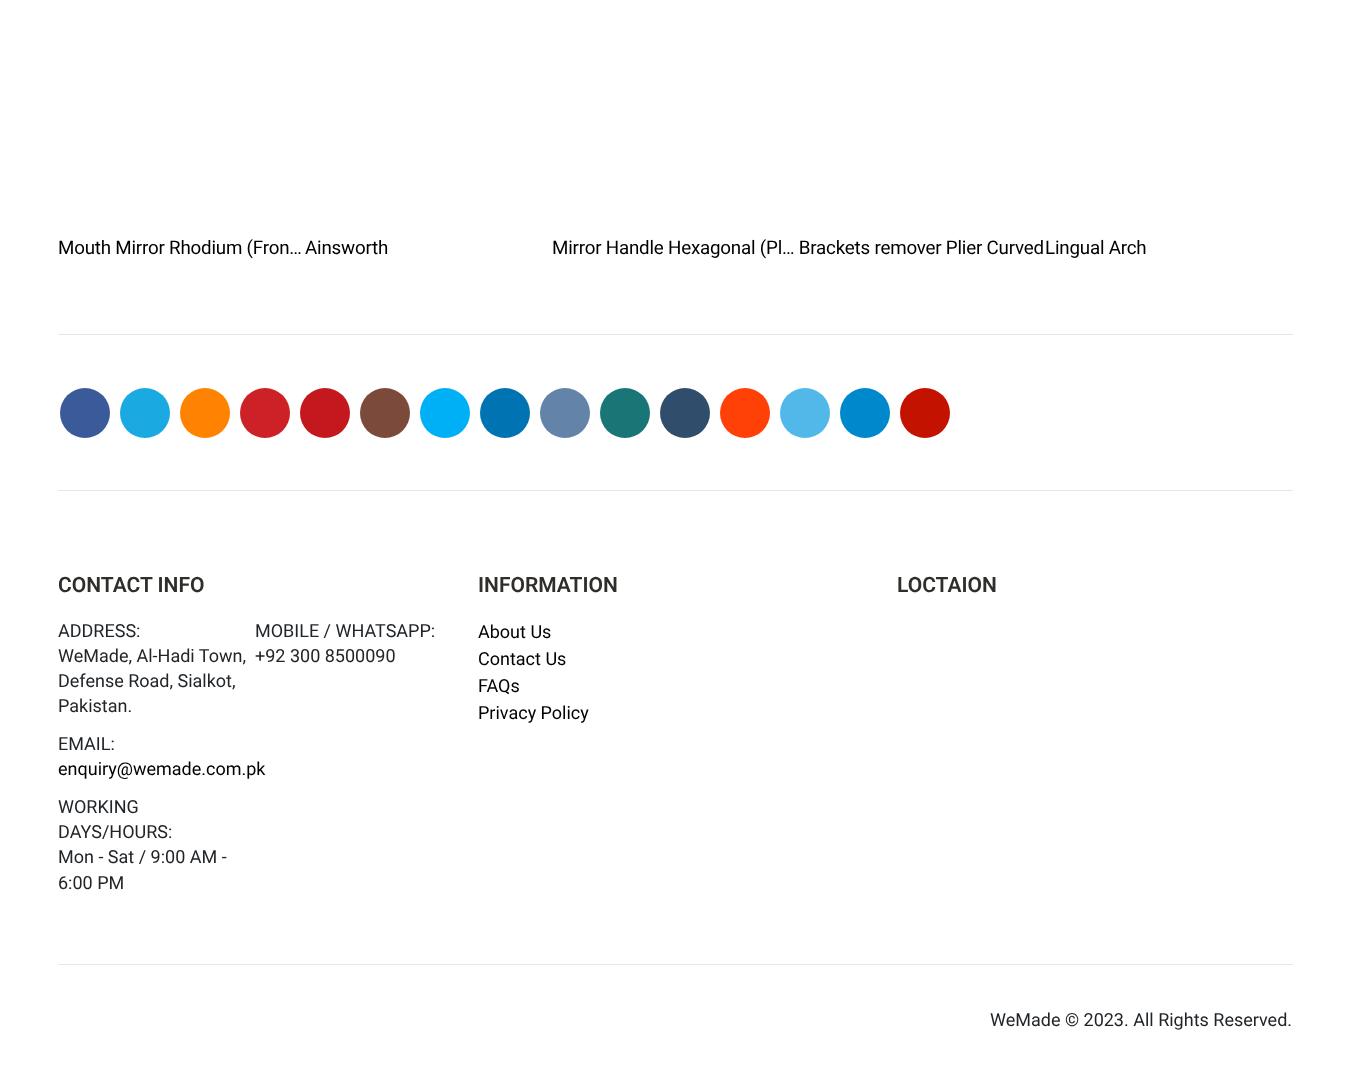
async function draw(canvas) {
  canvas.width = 1349;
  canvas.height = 1087;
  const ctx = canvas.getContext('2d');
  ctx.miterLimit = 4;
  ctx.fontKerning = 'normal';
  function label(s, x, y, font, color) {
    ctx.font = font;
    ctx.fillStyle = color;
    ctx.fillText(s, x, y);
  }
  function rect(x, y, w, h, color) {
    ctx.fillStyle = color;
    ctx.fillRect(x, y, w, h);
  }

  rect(0, 0, 1349, 1087, '#fff');
  ctx.letterSpacing = '-0.2px';
  label('Mouth Mirror Rhodium (Fron…', 58, 254, '18.75px Roboto', '#000');
  label('Ainsworth', 305, 254, '18.75px Roboto', '#000');
  label('Mirror Handle Hexagonal (Pl… Brackets remover Plier Curved', 552, 254, '18.75px Roboto', '#000');
  label('Lingual Arch', 1045, 254, '18.75px Roboto', '#000');
  rect(58, 334, 1235, 1, '#e7e7e7');
  ctx.fillStyle = '#3b5a9a';
  ctx.beginPath();
  ctx.arc(85, 413, 25, 0, 2 * Math.PI);
  ctx.fill();
  ctx.fillStyle = '#1aa9e1';
  ctx.beginPath();
  ctx.arc(145, 413, 25, 0, 2 * Math.PI);
  ctx.fill();
  ctx.fillStyle = '#ff8201';
  ctx.beginPath();
  ctx.arc(205, 413, 25, 0, 2 * Math.PI);
  ctx.fill();
  ctx.fillStyle = '#cc2127';
  ctx.beginPath();
  ctx.arc(265, 413, 25, 0, 2 * Math.PI);
  ctx.fill();
  ctx.fillStyle = '#c3191e';
  ctx.beginPath();
  ctx.arc(325, 413, 25, 0, 2 * Math.PI);
  ctx.fill();
  ctx.fillStyle = '#7c4a3a';
  ctx.beginPath();
  ctx.arc(385, 413, 25, 0, 2 * Math.PI);
  ctx.fill();
  ctx.fillStyle = '#00b0f6';
  ctx.beginPath();
  ctx.arc(445, 413, 25, 0, 2 * Math.PI);
  ctx.fill();
  ctx.fillStyle = '#0073b2';
  ctx.beginPath();
  ctx.arc(505, 413, 25, 0, 2 * Math.PI);
  ctx.fill();
  ctx.fillStyle = '#6383a8';
  ctx.beginPath();
  ctx.arc(565, 413, 25, 0, 2 * Math.PI);
  ctx.fill();
  ctx.fillStyle = '#1a7576';
  ctx.beginPath();
  ctx.arc(625, 413, 25, 0, 2 * Math.PI);
  ctx.fill();
  ctx.fillStyle = '#304e6c';
  ctx.beginPath();
  ctx.arc(685, 413, 25, 0, 2 * Math.PI);
  ctx.fill();
  ctx.fillStyle = '#ff4107';
  ctx.beginPath();
  ctx.arc(745, 413, 25, 0, 2 * Math.PI);
  ctx.fill();
  ctx.fillStyle = '#52b8ea';
  ctx.beginPath();
  ctx.arc(805, 413, 25, 0, 2 * Math.PI);
  ctx.fill();
  ctx.fillStyle = '#08c';
  ctx.beginPath();
  ctx.arc(865, 413, 25, 0, 2 * Math.PI);
  ctx.fill();
  ctx.fillStyle = '#c41200';
  ctx.beginPath();
  ctx.arc(925, 413, 25, 0, 2 * Math.PI);
  ctx.fill();
  rect(58, 490, 1235, 1, '#e7e7e7');
  ctx.letterSpacing = '0px';
  label('CONTACT INFO', 58, 592, '600 21px Roboto', '#302e2a');
  label('ADDRESS:', 58, 637, '18px Roboto', '#212529');
  label('WeMade, Al-Hadi Town,', 58, 662, '18px Roboto', '#212529');
  label('Defense Road, Sialkot,', 58, 687, '18px Roboto', '#212529');
  label('Pakistan.', 58, 712, '18px Roboto', '#212529');
  label('MOBILE / WHATSAPP:', 255, 637, '18px Roboto', '#212529');
  label('+92 300 8500090', 255, 662, '18px Roboto', '#212529');
  label('EMAIL:', 58, 750, '18px Roboto', '#212529');
  label('enquiry@wemade.com.pk', 58, 775, '18px Roboto', '#000');
  label('WORKING', 58, 813, '18px Roboto', '#212529');
  label('DAYS/HOURS:', 58, 838, '18px Roboto', '#212529');
  label('Mon - Sat / 9:00 AM -', 58, 863, '18px Roboto', '#212529');
  label('6:00 PM', 58, 889, '18px Roboto', '#212529');
  label('INFORMATION', 478, 592, '600 21px Roboto', '#302e2a');
  label('About Us', 478, 638, '18px Roboto', '#000');
  label('Contact Us', 478, 665, '18px Roboto', '#000');
  label('FAQs', 478, 692, '18px Roboto', '#000');
  label('Privacy Policy', 478, 719, '18px Roboto', '#000');
  label('LOCTAION', 897, 592, '600 21px Roboto', '#302e2a');
  rect(58, 964, 1235, 1, '#e7e7e7');
  label('WeMade © 2023. All Rights Reserved.', 990, 1026, '18px Roboto', '#212529');
}

draw(document.querySelector('canvas'));
